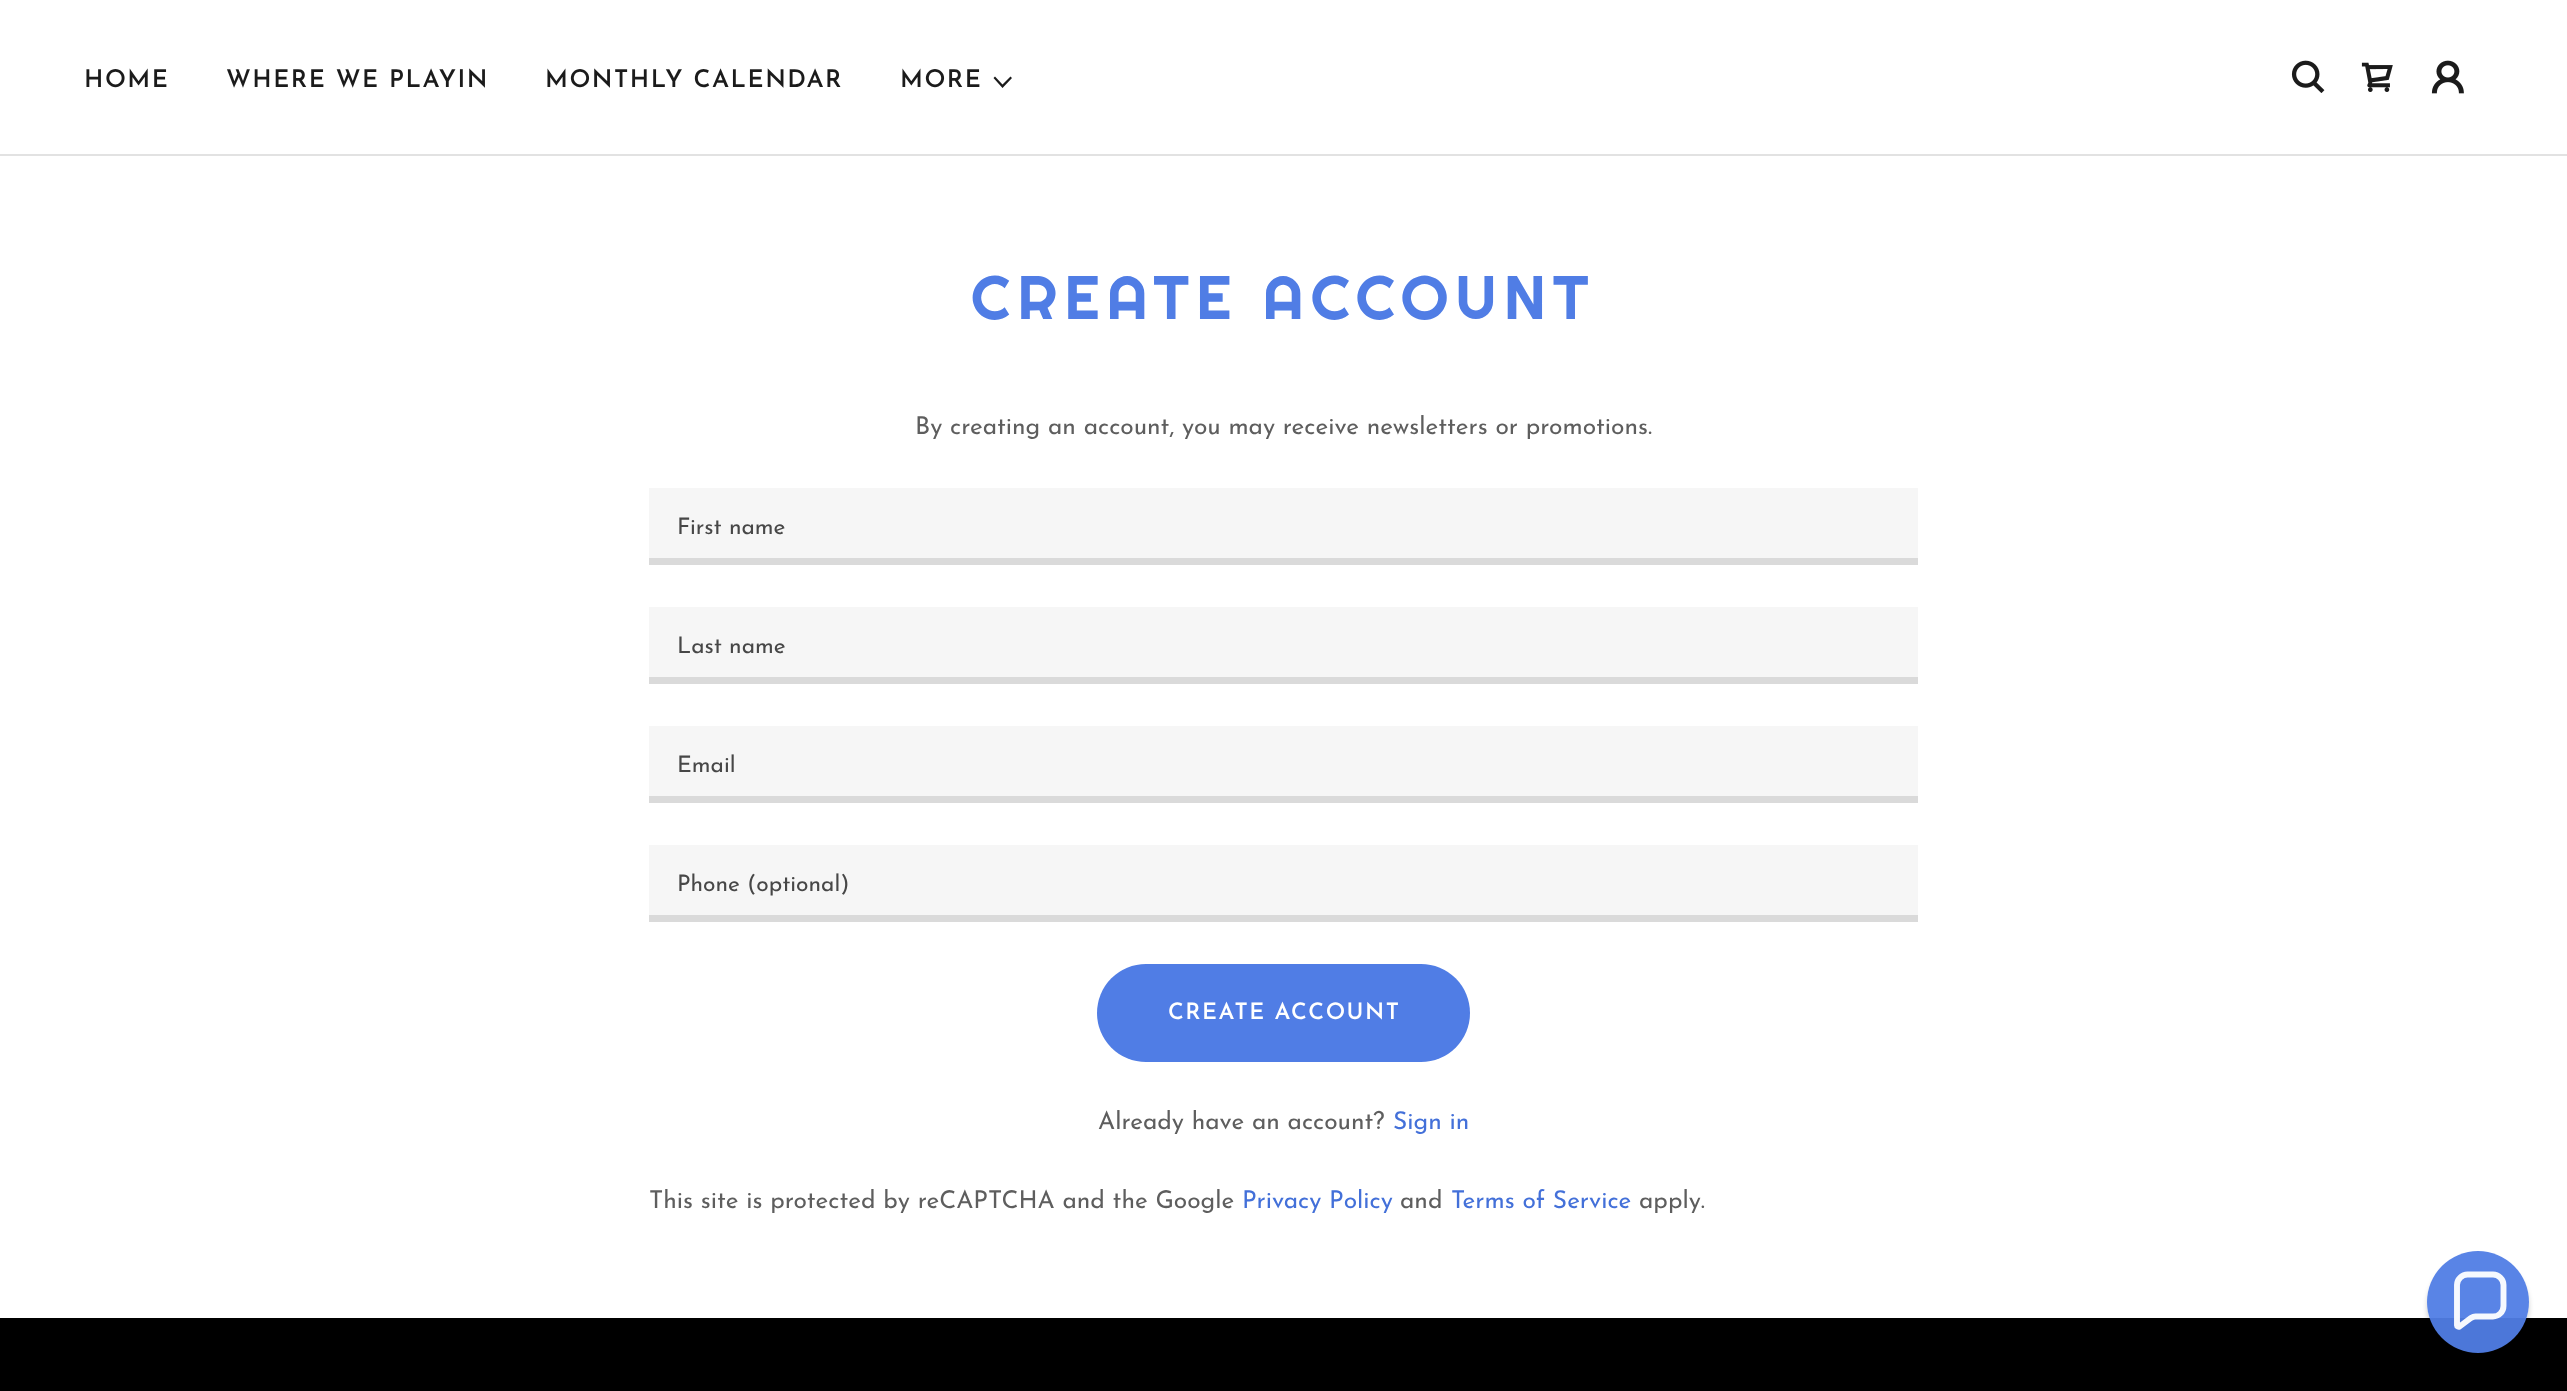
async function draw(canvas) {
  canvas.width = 2567;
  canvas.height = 1391;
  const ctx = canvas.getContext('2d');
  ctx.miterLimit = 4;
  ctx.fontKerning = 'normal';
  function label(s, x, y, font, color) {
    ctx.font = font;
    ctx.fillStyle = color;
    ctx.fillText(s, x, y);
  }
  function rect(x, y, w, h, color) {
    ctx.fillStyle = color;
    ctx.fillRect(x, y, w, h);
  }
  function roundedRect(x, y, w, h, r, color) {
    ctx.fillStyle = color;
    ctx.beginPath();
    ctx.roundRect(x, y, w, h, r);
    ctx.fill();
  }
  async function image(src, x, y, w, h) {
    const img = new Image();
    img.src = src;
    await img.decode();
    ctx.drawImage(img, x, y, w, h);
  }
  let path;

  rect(0, 0, 2567, 1391, '#000');
  rect(0, 0, 2567, 154, '#fff');
  ctx.letterSpacing = '1.5px';
  label('HOME', 84, 87, '600 24.5px Josefin Sans', '#1b1b1b');
  label('WHERE WE PLAYIN', 226, 87, '600 24.5px Josefin Sans', '#1b1b1b');
  label('MONTHLY CALENDAR', 545, 87, '600 24.5px Josefin Sans', '#1b1b1b');
  label('MORE', 900, 87, '600 24.5px Josefin Sans', '#1b1b1b');
  path = new Path2D('M1010.5 76.5L1002.5 84.5L995 76.5L993.5 78L1002.5 88L1012 78Z');
  ctx.fill(path, 'evenodd');
  await image('assets/img1.png', 2291, 60, 34, 33);
  await image('assets/img2.png', 2361, 62, 32, 30);
  await image('assets/img3.png', 2431, 60, 33, 34);
  rect(0, 154, 2567, 2, '#e2e2e2');
  rect(0, 156, 2567, 1162, '#fff');
  ctx.letterSpacing = '7px';
  label('CREATE ACCOUNT', 971, 319, '61.25px Righteous', '#507de5');
  ctx.letterSpacing = '0px';
  label('By creating an account, you may receive newsletters or promotions.', 915, 434, '24.5px Josefin Sans', '#5e5e5e');
  rect(649, 488, 1269, 70, '#f6f6f6');
  rect(649, 558, 1269, 7, '#dadada');
  label('First name', 677, 534, '22.75px Josefin Sans', '#474747');
  rect(649, 607, 1269, 70, '#f6f6f6');
  rect(649, 677, 1269, 7, '#dadada');
  label('Last name', 677, 653, '22.75px Josefin Sans', '#474747');
  rect(649, 726, 1269, 70, '#f6f6f6');
  rect(649, 796, 1269, 7, '#dadada');
  label('Email', 677, 772, '22.75px Josefin Sans', '#474747');
  rect(649, 845, 1269, 70, '#f6f6f6');
  rect(649, 915, 1269, 7, '#dadada');
  label('Phone (optional)', 677, 891, '22.75px Josefin Sans', '#474747');
  roundedRect(1097, 964, 373, 98, 49, '#507de5');
  ctx.letterSpacing = '1.5px';
  label('CREATE ACCOUNT', 1168, 1019, '600 22.75px Josefin Sans', '#fff');
  ctx.letterSpacing = '0px';
  label('Already have an account?', 1098, 1129, '24.5px Josefin Sans', '#5e5e5e');
  label('Sign in', 1393, 1129, '24.5px Josefin Sans', '#4370d9');
  label('This site is protected by reCAPTCHA and the Google', 649, 1208, '24.5px Josefin Sans', '#5e5e5e');
  label('Privacy Policy', 1242, 1208, '24.5px Josefin Sans', '#4370d9');
  label('and', 1400, 1208, '24.5px Josefin Sans', '#5e5e5e');
  label('Terms of Service', 1451, 1208, '24.5px Josefin Sans', '#4370d9');
  label('apply.', 1639, 1208, '24.5px Josefin Sans', '#5e5e5e');
  ctx.save();
  path = new Path2D('M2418 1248H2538V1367H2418ZM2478 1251C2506 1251 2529 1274 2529 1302C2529 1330 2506 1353 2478 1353C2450 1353 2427 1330 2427 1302C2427 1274 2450 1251 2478 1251Z');
  ctx.clip(path, 'evenodd');
  ctx.fillStyle = '#00000030';
  ctx.filter = 'blur(2.5px)';
  ctx.beginPath();
  ctx.roundRect(2427, 1257, 102, 101, 50.5);
  ctx.fill();
  ctx.filter = 'none';
  ctx.restore();
  ctx.fillStyle = '#507de5f2';
  ctx.beginPath();
  ctx.arc(2478, 1302, 51, 0, 2 * Math.PI);
  ctx.fill();
  path = new Path2D('M2493 1274.5H2467.5C2462 1274.5 2457 1279.5 2457 1285V1325.5C2457 1326.5 2458.5 1327 2459.5 1326.5L2471 1318C2472.5 1317 2474 1316.5 2475.5 1316.5H2493C2498.5 1316.5 2503.5 1312 2503.5 1306V1285C2503.5 1279.5 2498.5 1274.5 2493 1274.5Z');
  ctx.strokeStyle = '#fffffff2';
  ctx.lineWidth = 5.9;
  ctx.stroke(path);
}

draw(document.querySelector('canvas'));
